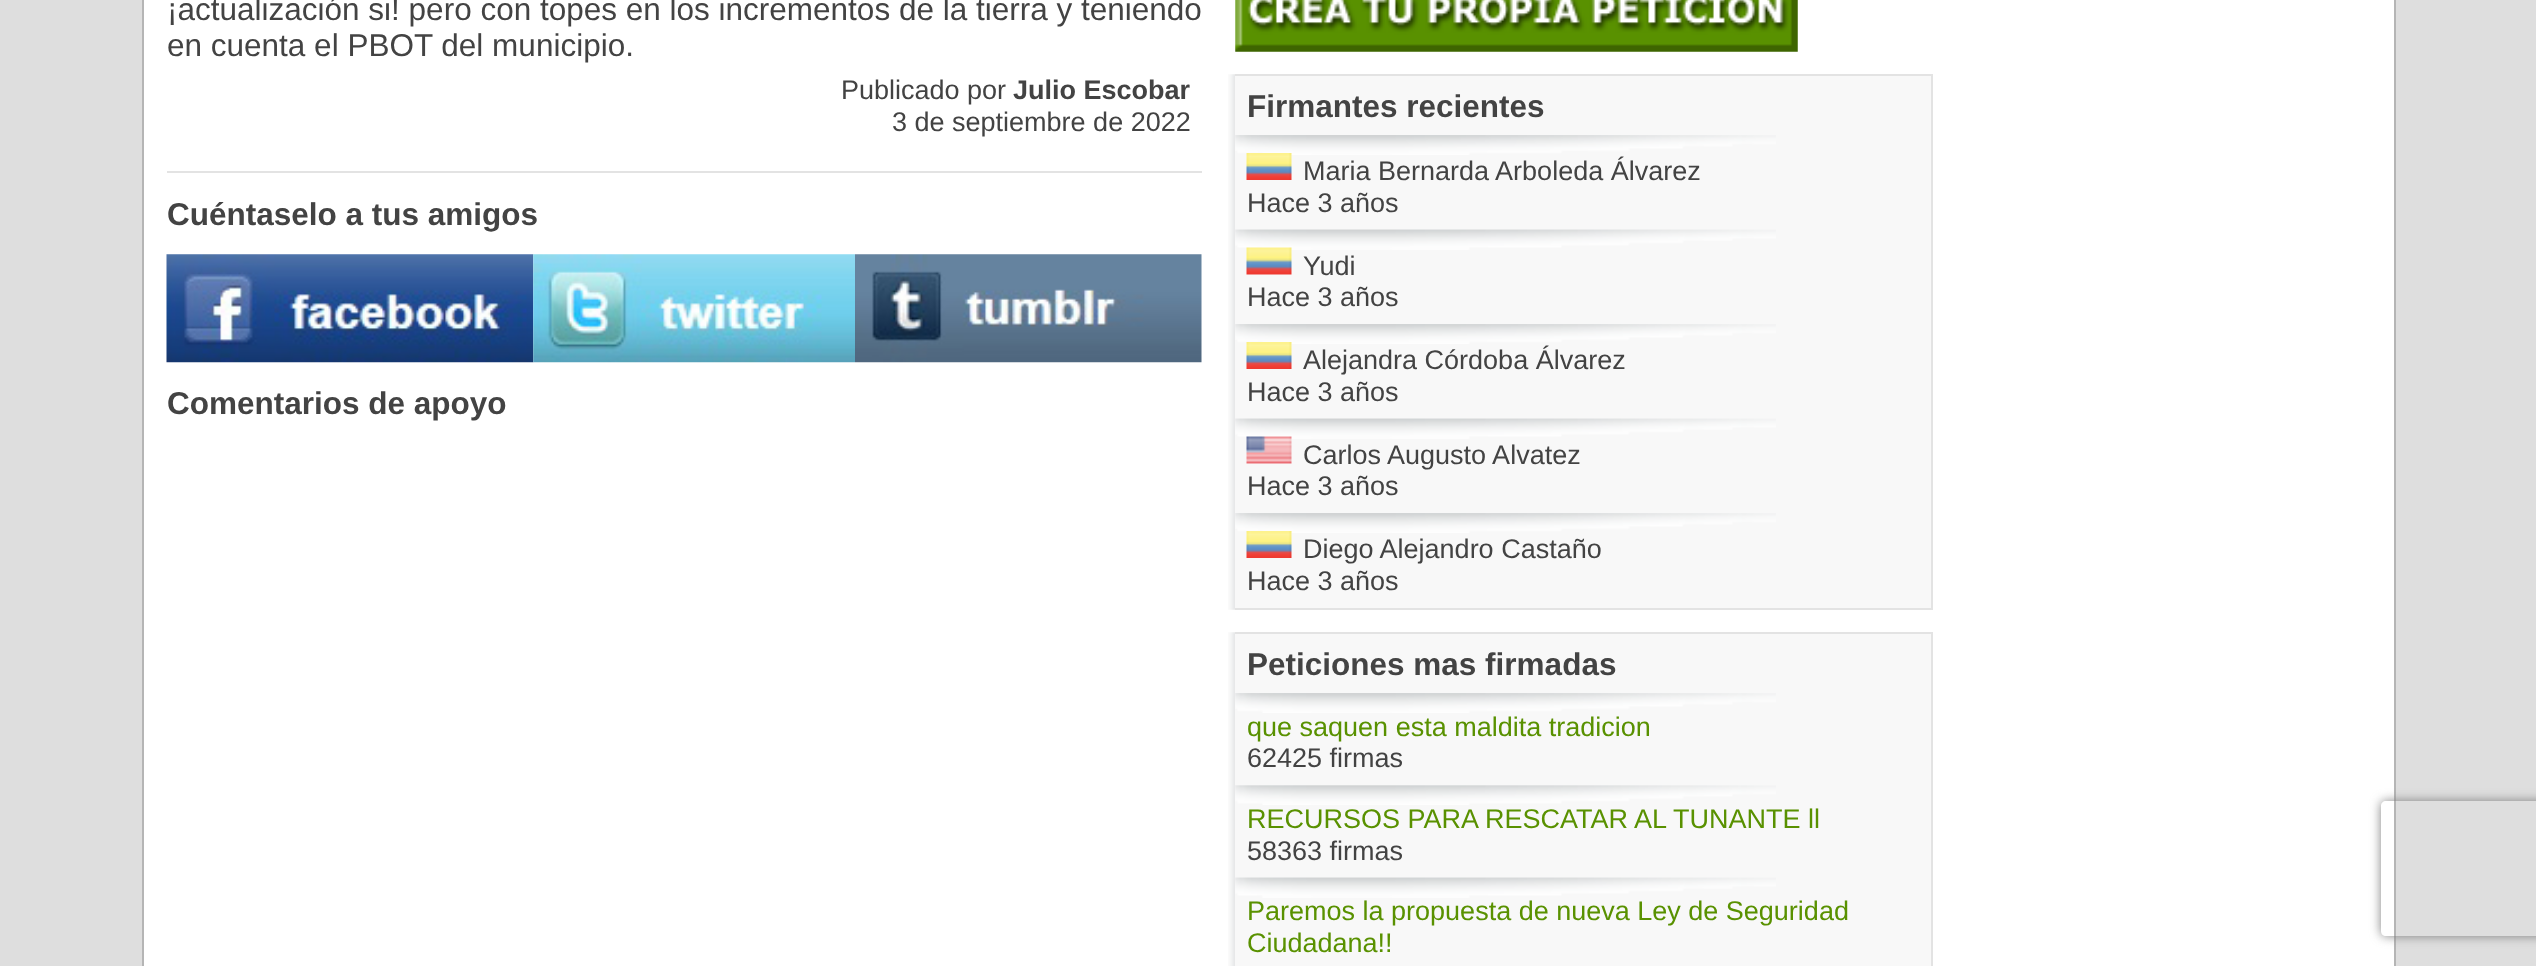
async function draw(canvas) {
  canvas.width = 2536;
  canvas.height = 966;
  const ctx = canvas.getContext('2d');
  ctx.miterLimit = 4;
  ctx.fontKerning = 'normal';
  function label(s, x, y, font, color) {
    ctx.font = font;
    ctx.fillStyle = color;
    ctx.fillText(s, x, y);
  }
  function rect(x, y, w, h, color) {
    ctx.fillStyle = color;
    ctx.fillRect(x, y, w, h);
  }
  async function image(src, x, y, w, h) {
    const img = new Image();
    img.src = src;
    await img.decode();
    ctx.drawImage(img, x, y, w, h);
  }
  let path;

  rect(0, 0, 2536, 966, '#dedede');
  rect(144, 0, 2250, 966, '#fff');
  rect(2394, 0, 2, 966, '#b5b5b5');
  rect(142, 0, 2, 966, '#b5b5b5');
  label('¡actualización si! pero con topes en los incrementos de la tierra y teniendo', 167, 20, '31.5px Liberation Sans', '#434343');
  label('en cuenta el PBOT del municipio.', 167, 56, '31.5px Liberation Sans', '#434343');
  label('Publicado por', 841, 99, '27px Liberation Sans', '#434343');
  label('Julio Escobar', 1013, 99, 'bold 27px Liberation Sans', '#434343');
  label('3 de septiembre de 2022', 892, 131, '27px Liberation Sans', '#434343');
  rect(167, 171, 1035, 2, '#e3e3e3');
  label('Cuéntaselo a tus amigos', 167, 225, 'bold 31.5px Liberation Sans', '#434343');
  await image('assets/img1.png', 166, 254, 368, 109);
  await image('assets/img2.png', 533, 254, 322, 109);
  await image('assets/img3.png', 855, 254, 347, 109);
  label('Comentarios de apoyo', 167, 414, 'bold 31.5px Liberation Sans', '#434343');
  await image('assets/img4.png', 1235, 0, 563, 52);
  await image('assets/img5.png', 1228, 74, 7, 536);
  rect(1235, 76, 696, 532, '#f8f8f8');
  rect(1235, 74, 698, 2, '#e3e3e3');
  rect(1931, 74, 2, 536, '#e3e3e3');
  rect(1235, 608, 698, 2, '#e3e3e3');
  label('Firmantes recientes', 1247, 117, 'bold 31.5px Liberation Sans', '#434343');
  await image('assets/img6.png', 1235, 135, 541, 20);
  await image('assets/img7.png', 1246, 153, 46, 27);
  label('Maria Bernarda Arboleda Álvarez', 1303, 180, '27px Liberation Sans', '#434343');
  label('Hace 3 años', 1247, 212, '27px Liberation Sans', '#434343');
  await image('assets/img8.png', 1235, 229, 541, 21);
  await image('assets/img9.png', 1246, 247, 46, 28);
  label('Yudi', 1303, 275, '27px Liberation Sans', '#434343');
  label('Hace 3 años', 1247, 306, '27px Liberation Sans', '#434343');
  await image('assets/img6.png', 1235, 324, 541, 20);
  await image('assets/img7.png', 1246, 342, 46, 27);
  label('Alejandra Córdoba Álvarez', 1303, 369, '27px Liberation Sans', '#434343');
  label('Hace 3 años', 1247, 401, '27px Liberation Sans', '#434343');
  await image('assets/img8.png', 1235, 418, 541, 21);
  await image('assets/img10.png', 1246, 436, 46, 28);
  label('Carlos Augusto Alvatez', 1303, 464, '27px Liberation Sans', '#434343');
  label('Hace 3 años', 1247, 495, '27px Liberation Sans', '#434343');
  await image('assets/img6.png', 1235, 513, 541, 20);
  await image('assets/img7.png', 1246, 531, 46, 27);
  label('Diego Alejandro Castaño', 1303, 558, '27px Liberation Sans', '#434343');
  label('Hace 3 años', 1247, 590, '27px Liberation Sans', '#434343');
  await image('assets/img11.png', 1228, 632, 7, 334);
  rect(1235, 634, 696, 332, '#f8f8f8');
  rect(1235, 632, 698, 2, '#e3e3e3');
  rect(1931, 632, 2, 334, '#e3e3e3');
  label('Peticiones mas firmadas', 1247, 675, 'bold 31.5px Liberation Sans', '#434343');
  await image('assets/img6.png', 1235, 693, 541, 20);
  label('que saquen esta maldita tradicion', 1247, 736, '27px Liberation Sans', '#599100');
  label('62425 firmas', 1247, 767, '27px Liberation Sans', '#434343');
  await image('assets/img12.png', 1235, 785, 541, 20);
  label('RECURSOS PARA RESCATAR AL TUNANTE ll', 1247, 828, '27px Liberation Sans', '#599100');
  label('58363 firmas', 1247, 860, '27px Liberation Sans', '#434343');
  await image('assets/img8.png', 1235, 877, 541, 21);
  label('Paremos la propuesta de nueva Ley de Seguridad', 1247, 920, '27px Liberation Sans', '#599100');
  label('Ciudadana!!', 1247, 952, '27px Liberation Sans', '#599100');
  ctx.save();
  path = new Path2D('M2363 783H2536V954H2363ZM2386 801H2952C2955 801 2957 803 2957 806V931C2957 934 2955 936 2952 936H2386C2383 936 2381 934 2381 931V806C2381 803 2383 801 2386 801Z');
  ctx.clip(path, 'evenodd');
  ctx.fillStyle = '#808080';
  ctx.filter = 'blur(5.5px)';
  ctx.beginPath();
  ctx.roundRect(2381, 801, 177, 135, 5);
  ctx.fill();
  ctx.filter = 'none';
  ctx.restore();
}

draw(document.querySelector('canvas'));
